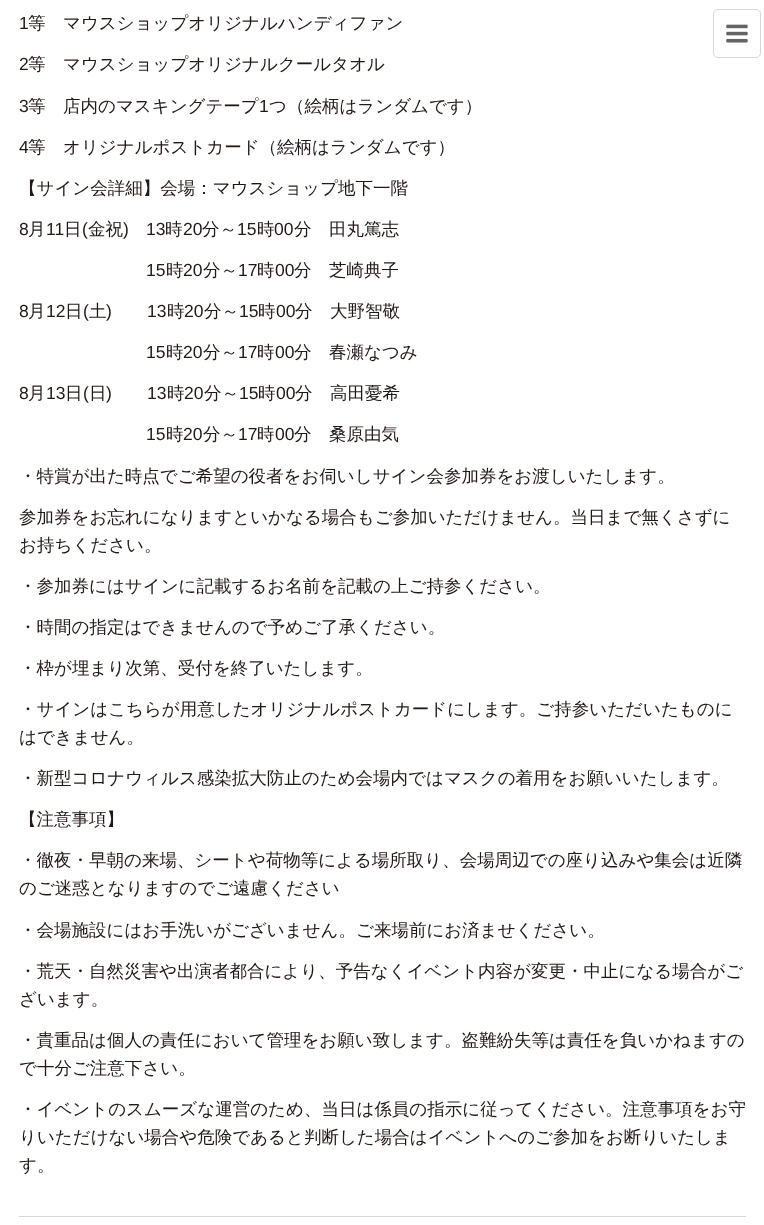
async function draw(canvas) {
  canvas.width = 764;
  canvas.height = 1225;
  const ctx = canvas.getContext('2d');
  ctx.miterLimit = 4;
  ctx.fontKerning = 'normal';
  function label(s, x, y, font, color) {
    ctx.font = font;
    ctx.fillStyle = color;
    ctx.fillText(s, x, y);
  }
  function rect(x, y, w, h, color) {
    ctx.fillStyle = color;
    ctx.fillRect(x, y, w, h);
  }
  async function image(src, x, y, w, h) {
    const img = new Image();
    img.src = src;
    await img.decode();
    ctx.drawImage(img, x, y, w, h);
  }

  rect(0, 0, 764, 1225, '#fff');
  ctx.beginPath();
  ctx.roundRect(713.5, 9.5, 47, 48, 4.5);
  ctx.strokeStyle = '#d8d8d8';
  ctx.stroke();
  await image('assets/img1.png', 726, 24, 22, 19);
  label('1', 19, 29, '17.5px Liberation Sans', '#221815');
  label('等　マウスショップオリジナルハンディファン', 28, 29, '500 17.5px WenQuanYi Zen Hei', '#221815');
  label('2', 19, 70, '17.5px Liberation Sans', '#221815');
  label('等　マウスショップオリジナルクールタオル', 28, 70, '500 17.5px WenQuanYi Zen Hei', '#221815');
  label('3', 19, 112, '17.5px Liberation Sans', '#221815');
  label('等　店内のマスキングテープ', 28, 112, '500 17.5px WenQuanYi Zen Hei', '#221815');
  label('1', 259, 112, '17.5px Liberation Sans', '#221815');
  label('つ（絵柄はランダムです）', 269, 112, '500 17.5px WenQuanYi Zen Hei', '#221815');
  label('4', 19, 153, '17.5px Liberation Sans', '#221815');
  label('等　オリジナルポストカード（絵柄はランダムです）', 28, 153, '500 17.5px WenQuanYi Zen Hei', '#221815');
  label('【サイン会詳細】会場：マウスショップ地下一階', 19, 194, '500 17.5px WenQuanYi Zen Hei', '#221815');
  label('8', 19, 235, '17.5px Liberation Sans', '#221815');
  label('月', 28, 235, '500 17.5px WenQuanYi Zen Hei', '#221815');
  label('11', 46, 235, '17.5px Liberation Sans', '#221815');
  label('日', 64, 235, '500 17.5px WenQuanYi Zen Hei', '#221815');
  label('(', 82, 235, '17.5px Liberation Sans', '#221815');
  label('金祝', 88, 235, '500 17.5px WenQuanYi Zen Hei', '#221815');
  label(')', 123, 235, '17.5px Liberation Sans', '#221815');
  label('13', 146, 235, '17.5px Liberation Sans', '#221815');
  label('時', 165, 235, '500 17.5px WenQuanYi Zen Hei', '#221815');
  label('20', 183, 235, '17.5px Liberation Sans', '#221815');
  label('分～', 202, 235, '500 17.5px WenQuanYi Zen Hei', '#221815');
  label('15', 237, 235, '17.5px Liberation Sans', '#221815');
  label('時', 257, 235, '500 17.5px WenQuanYi Zen Hei', '#221815');
  label('00', 274, 235, '17.5px Liberation Sans', '#221815');
  label('分　田丸篤志', 294, 235, '500 17.5px WenQuanYi Zen Hei', '#221815');
  label('15', 146, 276, '17.5px Liberation Sans', '#221815');
  label('時', 166, 276, '500 17.5px WenQuanYi Zen Hei', '#221815');
  label('20', 183, 276, '17.5px Liberation Sans', '#221815');
  label('分～', 203, 276, '500 17.5px WenQuanYi Zen Hei', '#221815');
  label('17', 238, 276, '17.5px Liberation Sans', '#221815');
  label('時', 257, 276, '500 17.5px WenQuanYi Zen Hei', '#221815');
  label('00', 275, 276, '17.5px Liberation Sans', '#221815');
  label('分　芝崎典子', 294, 276, '500 17.5px WenQuanYi Zen Hei', '#221815');
  label('8', 19, 317, '17.5px Liberation Sans', '#221815');
  label('月', 28, 317, '500 17.5px WenQuanYi Zen Hei', '#221815');
  label('12', 46, 317, '17.5px Liberation Sans', '#221815');
  label('日', 65, 317, '500 17.5px WenQuanYi Zen Hei', '#221815');
  label('(', 83, 317, '17.5px Liberation Sans', '#221815');
  label('土', 89, 317, '500 17.5px WenQuanYi Zen Hei', '#221815');
  label(')', 106, 317, '17.5px Liberation Sans', '#221815');
  label('13', 147, 317, '17.5px Liberation Sans', '#221815');
  label('時', 167, 317, '500 17.5px WenQuanYi Zen Hei', '#221815');
  label('20', 184, 317, '17.5px Liberation Sans', '#221815');
  label('分～', 204, 317, '500 17.5px WenQuanYi Zen Hei', '#221815');
  label('15', 239, 317, '17.5px Liberation Sans', '#221815');
  label('時', 258, 317, '500 17.5px WenQuanYi Zen Hei', '#221815');
  label('00', 276, 317, '17.5px Liberation Sans', '#221815');
  label('分　大野智敬', 295, 317, '500 17.5px WenQuanYi Zen Hei', '#221815');
  label('15', 146, 358, '17.5px Liberation Sans', '#221815');
  label('時', 166, 358, '500 17.5px WenQuanYi Zen Hei', '#221815');
  label('20', 183, 358, '17.5px Liberation Sans', '#221815');
  label('分～', 203, 358, '500 17.5px WenQuanYi Zen Hei', '#221815');
  label('17', 238, 358, '17.5px Liberation Sans', '#221815');
  label('時', 257, 358, '500 17.5px WenQuanYi Zen Hei', '#221815');
  label('00', 275, 358, '17.5px Liberation Sans', '#221815');
  label('分　春瀬なつみ', 294, 358, '500 17.5px WenQuanYi Zen Hei', '#221815');
  label('8', 19, 399, '17.5px Liberation Sans', '#221815');
  label('月', 28, 399, '500 17.5px WenQuanYi Zen Hei', '#221815');
  label('13', 46, 399, '17.5px Liberation Sans', '#221815');
  label('日', 65, 399, '500 17.5px WenQuanYi Zen Hei', '#221815');
  label('(', 83, 399, '17.5px Liberation Sans', '#221815');
  label('日', 89, 399, '500 17.5px WenQuanYi Zen Hei', '#221815');
  label(')', 106, 399, '17.5px Liberation Sans', '#221815');
  label('13', 147, 399, '17.5px Liberation Sans', '#221815');
  label('時', 167, 399, '500 17.5px WenQuanYi Zen Hei', '#221815');
  label('20', 184, 399, '17.5px Liberation Sans', '#221815');
  label('分～', 204, 399, '500 17.5px WenQuanYi Zen Hei', '#221815');
  label('15', 239, 399, '17.5px Liberation Sans', '#221815');
  label('時', 258, 399, '500 17.5px WenQuanYi Zen Hei', '#221815');
  label('00', 276, 399, '17.5px Liberation Sans', '#221815');
  label('分　高田憂希', 295, 399, '500 17.5px WenQuanYi Zen Hei', '#221815');
  label('15', 146, 440, '17.5px Liberation Sans', '#221815');
  label('時', 166, 440, '500 17.5px WenQuanYi Zen Hei', '#221815');
  label('20', 183, 440, '17.5px Liberation Sans', '#221815');
  label('分～', 203, 440, '500 17.5px WenQuanYi Zen Hei', '#221815');
  label('17', 238, 440, '17.5px Liberation Sans', '#221815');
  label('時', 257, 440, '500 17.5px WenQuanYi Zen Hei', '#221815');
  label('00', 275, 440, '17.5px Liberation Sans', '#221815');
  label('分　桑原由気', 294, 440, '500 17.5px WenQuanYi Zen Hei', '#221815');
  label('・特賞が出た時点でご希望の役者をお伺いしサイン会参加券をお渡しいたします。', 19, 482, '500 17.5px WenQuanYi Zen Hei', '#221815');
  label('参加券をお忘れになりますといかなる場合もご参加いただけません。当日まで無くさずに', 19, 523, '500 17.5px WenQuanYi Zen Hei', '#221815');
  label('お持ちください。', 19, 551, '500 17.5px WenQuanYi Zen Hei', '#221815');
  label('・参加券にはサインに記載するお名前を記載の上ご持参ください。', 19, 592, '500 17.5px WenQuanYi Zen Hei', '#221815');
  label('・時間の指定はできませんので予めご了承ください。', 19, 633, '500 17.5px WenQuanYi Zen Hei', '#221815');
  label('・枠が埋まり次第、受付を終了いたします。', 19, 674, '500 17.5px WenQuanYi Zen Hei', '#221815');
  label('・サインはこちらが用意したオリジナルポストカードにします。ご持参いただいたものに', 19, 715, '500 17.5px WenQuanYi Zen Hei', '#221815');
  label('はできません。', 19, 743, '500 17.5px WenQuanYi Zen Hei', '#221815');
  label('・新型コロナウィルス感染拡大防止のため会場内ではマスクの着用をお願いいたします。', 19, 784, '500 17.5px WenQuanYi Zen Hei', '#221815');
  label('【注意事項】', 19, 825, '500 17.5px WenQuanYi Zen Hei', '#221815');
  label('・徹夜・早朝の来場、シートや荷物等による場所取り、会場周辺での座り込みや集会は近隣', 19, 866, '500 17.5px WenQuanYi Zen Hei', '#221815');
  label('のご迷惑となりますのでご遠慮ください', 19, 894, '500 17.5px WenQuanYi Zen Hei', '#221815');
  label('・会場施設にはお手洗いがございません。ご来場前にお済ませください。', 19, 936, '500 17.5px WenQuanYi Zen Hei', '#221815');
  label('・荒天・自然災害や出演者都合により、予告なくイベント内容が変更・中止になる場合がご', 19, 977, '500 17.5px WenQuanYi Zen Hei', '#221815');
  label('ざいます。', 19, 1005, '500 17.5px WenQuanYi Zen Hei', '#221815');
  label('・貴重品は個人の責任において管理をお願い致します。盗難紛失等は責任を負いかねますの', 19, 1046, '500 17.5px WenQuanYi Zen Hei', '#221815');
  label('で十分ご注意下さい。', 19, 1074, '500 17.5px WenQuanYi Zen Hei', '#221815');
  label('・イベントのスムーズな運営のため、当日は係員の指示に従ってください。注意事項をお守', 19, 1115, '500 17.5px WenQuanYi Zen Hei', '#221815');
  label('りいただけない場合や危険であると判断した場合はイベントへのご参加をお断りいたしま', 19, 1143, '500 17.5px WenQuanYi Zen Hei', '#221815');
  label('す。', 19, 1171, '500 17.5px WenQuanYi Zen Hei', '#221815');
  rect(19, 1216, 727, 1, '#d8d8d8');
}

draw(document.querySelector('canvas'));
